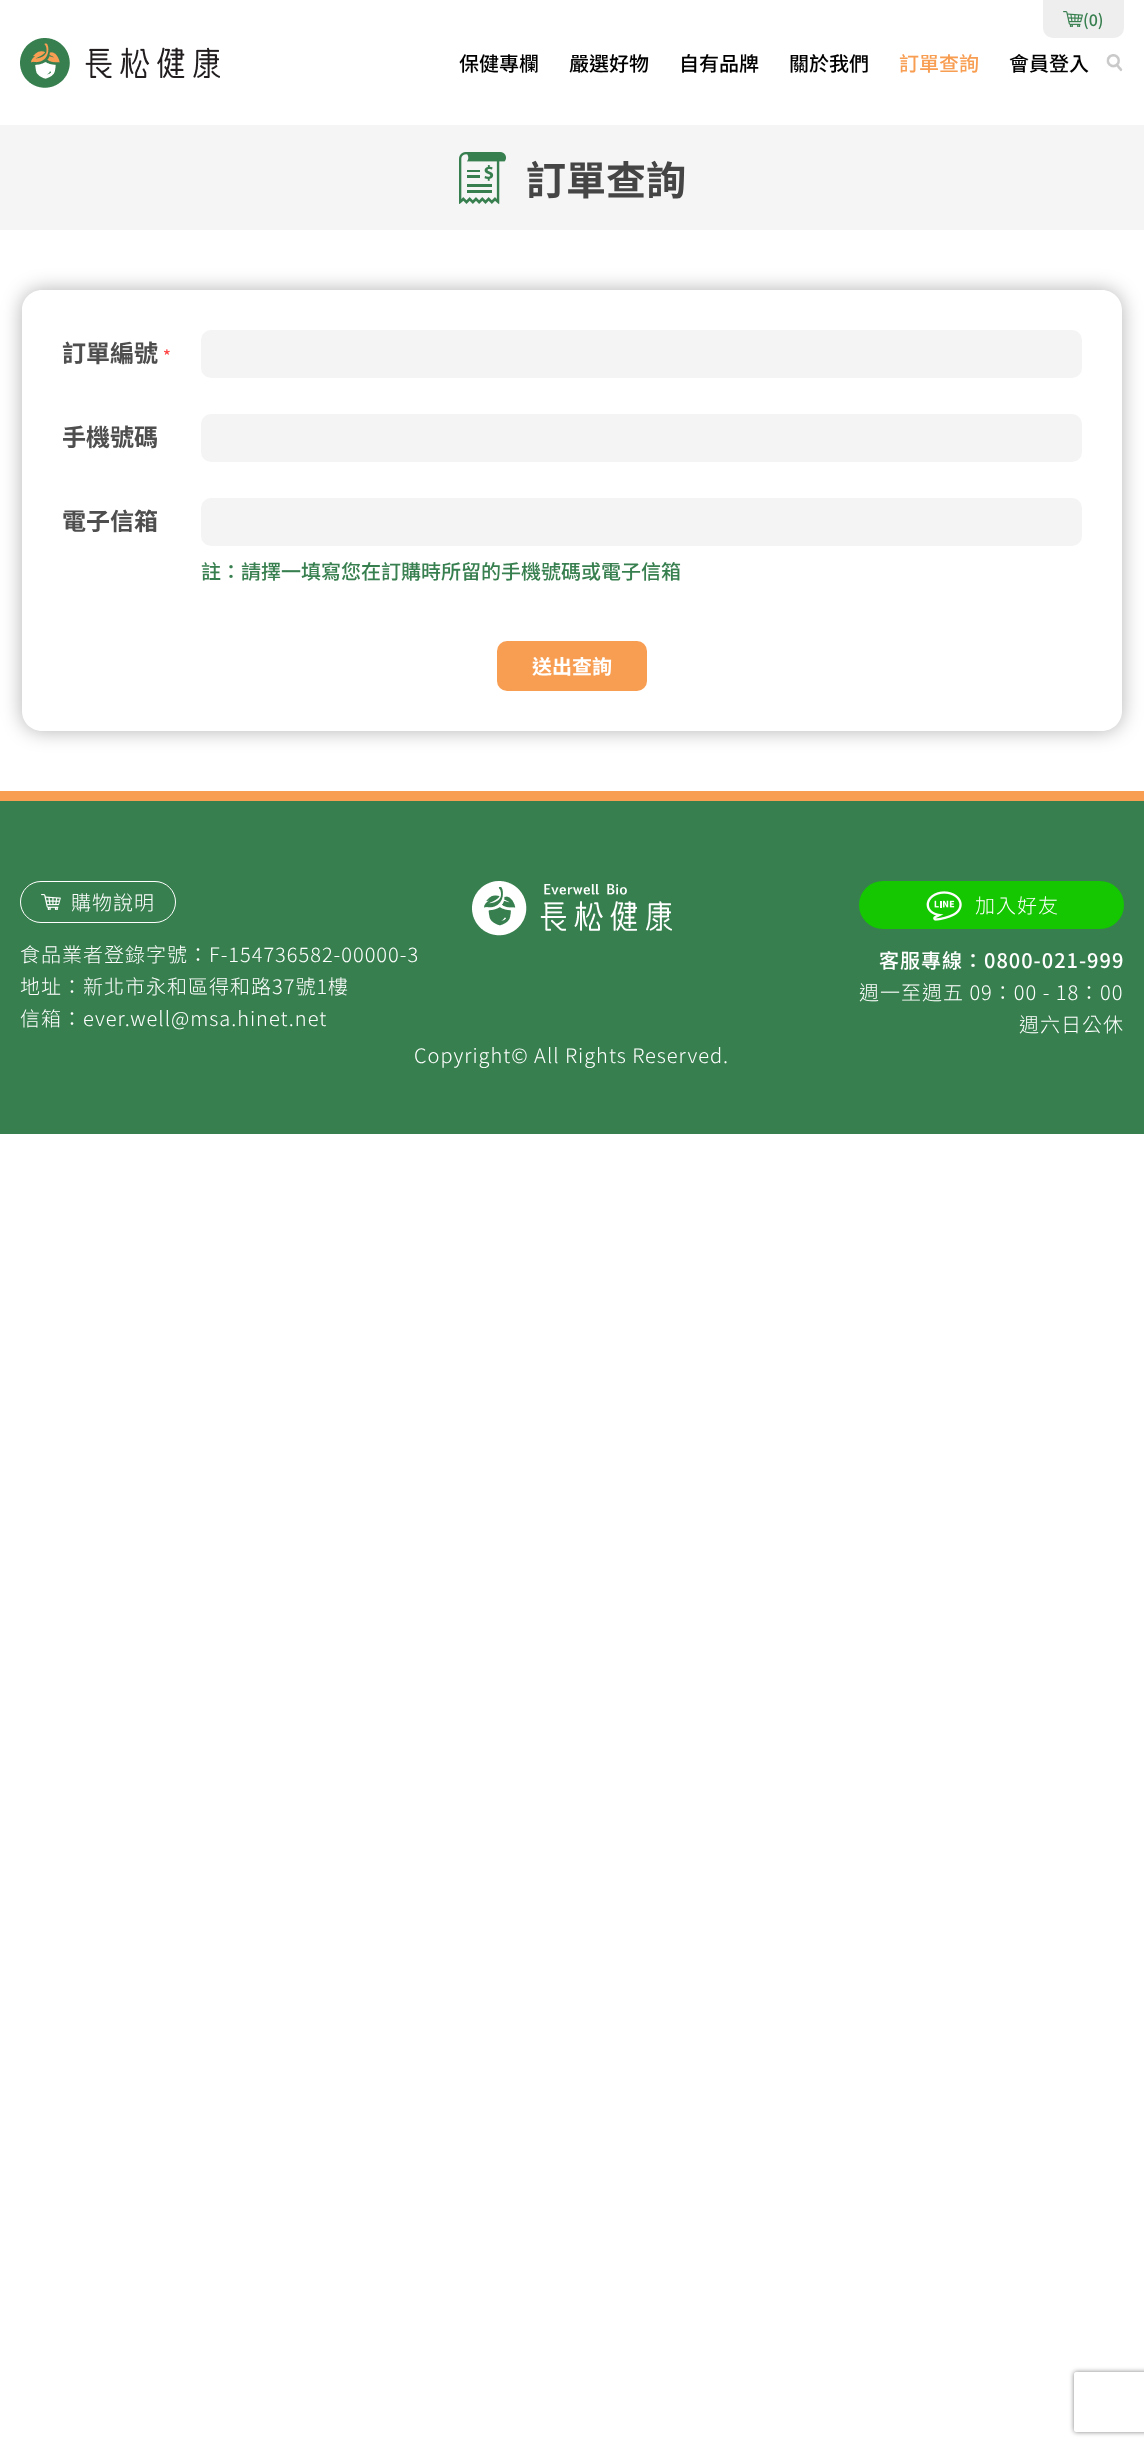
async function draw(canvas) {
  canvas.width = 1144;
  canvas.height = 2446;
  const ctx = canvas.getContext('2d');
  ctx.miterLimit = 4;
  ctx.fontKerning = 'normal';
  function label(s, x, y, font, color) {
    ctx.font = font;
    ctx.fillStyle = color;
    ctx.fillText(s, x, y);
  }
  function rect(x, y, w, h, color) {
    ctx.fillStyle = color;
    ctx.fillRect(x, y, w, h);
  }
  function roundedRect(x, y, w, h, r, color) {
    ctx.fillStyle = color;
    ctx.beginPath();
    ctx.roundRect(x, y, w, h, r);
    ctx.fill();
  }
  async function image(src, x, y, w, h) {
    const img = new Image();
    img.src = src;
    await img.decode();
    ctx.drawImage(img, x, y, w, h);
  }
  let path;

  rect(0, 0, 1144, 2446, '#fff');
  await image('assets/img1.png', 20, 38, 200, 50);
  ctx.fillStyle = '#eee';
  ctx.beginPath();
  ctx.roundRect(1043, 0, 81, 38, [0, 0, 10, 10]);
  ctx.fill();
  await image('assets/img2.png', 1063, 11, 20, 16);
  label('(0)', 1083, 26, '500 16px Noto Sans TC', '#387f4f');
  label('保健專欄', 459, 71, '500 20px Noto Sans TC', '#000');
  label('嚴選好物', 569, 71, '500 20px Noto Sans TC', '#000');
  label('自有品牌', 679, 71, '500 20px Noto Sans TC', '#000');
  label('關於我們', 789, 71, '500 20px Noto Sans TC', '#000');
  label('訂單查詢', 899, 71, '500 20px Noto Sans TC', '#f89e53');
  label('會員登入', 1009, 71, '500 20px Noto Sans TC', '#000');
  await image('assets/img3.png', 1106, 54, 17, 18);
  rect(0, 125, 1144, 105, '#f5f5f5');
  await image('assets/img4.png', 459, 152, 47, 52);
  label('訂單查詢', 526, 195, 'bold 40px Noto Sans TC', '#454545');
  ctx.save();
  path = new Path2D('M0 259H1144V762H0ZM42 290H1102C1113 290 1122 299 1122 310V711C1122 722 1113 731 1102 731H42C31 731 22 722 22 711V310C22 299 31 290 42 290Z');
  ctx.clip(path, 'evenodd');
  ctx.fillStyle = '#0000004d';
  ctx.filter = 'blur(10px)';
  ctx.beginPath();
  ctx.roundRect(22, 290, 1100, 441, 20);
  ctx.fill();
  ctx.filter = 'none';
  ctx.restore();
  label('訂單編號', 62, 362, 'bold 24px Noto Sans TC', '#4e4e4e');
  label('*', 163, 362, '500 16px Noto Sans TC', '#f44');
  roundedRect(201, 330, 881, 48, 10, '#f4f4f4');
  label('手機號碼', 62, 446, 'bold 24px Noto Sans TC', '#4e4e4e');
  roundedRect(201, 414, 881, 48, 10, '#f4f4f4');
  label('電子信箱', 62, 530, 'bold 24px Noto Sans TC', '#4e4e4e');
  roundedRect(201, 498, 881, 48, 10, '#f4f4f4');
  label('註：請擇一填寫您在訂購時所留的手機號碼或電子信箱', 201, 579, '500 20px Noto Sans TC', '#387f4f');
  roundedRect(497, 641, 150, 50, 10, '#f89e53');
  label('送出查詢', 532, 674, 'bold 20px Noto Sans TC', '#fff');
  rect(0, 801, 1144, 333, '#387f4f');
  rect(0, 791, 1144, 10, '#f89e53');
  ctx.beginPath();
  ctx.roundRect(20.5, 881.5, 155, 41, 20.5);
  ctx.strokeStyle = '#fff';
  ctx.stroke();
  await image('assets/img5.png', 41, 894, 20, 16);
  ctx.letterSpacing = '1px';
  label('購物說明', 71, 910, '300 20px Noto Sans TC', '#fff');
  label('食品業者登錄字號：F-154736582-00000-3', 20, 962, '300 20px Noto Sans TC', '#fff');
  label('地址：新北市永和區得和路37號1樓', 20, 994, '300 20px Noto Sans TC', '#fff');
  label('信箱：ever.well@msa.hinet.net', 20, 1026, '300 20px Noto Sans TC', '#fff');
  await image('assets/img6.png', 472, 881, 200, 55);
  roundedRect(859, 881, 265, 48, 24, '#14c700');
  await image('assets/img7.png', 926, 891, 36, 30);
  label('加入好友', 975, 913, '300 20px Noto Sans TC', '#fff');
  label('客服專線：0800-021-999', 879, 968, '500 20px Noto Sans TC', '#fff');
  label('週一至週五 09：00 - 18：00', 859, 1000, '300 20px Noto Sans TC', '#fff');
  label('週六日公休', 1019, 1032, '300 20px Noto Sans TC', '#fff');
  label('Copyright© All Rights Reserved.', 414, 1063, '300 20px Noto Sans TC', '#fff');
  ctx.save();
  path = new Path2D('M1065 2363H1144V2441H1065ZM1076 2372H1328C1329 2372 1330 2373 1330 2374V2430C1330 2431 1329 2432 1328 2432H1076C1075 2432 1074 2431 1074 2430V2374C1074 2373 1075 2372 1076 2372Z');
  ctx.clip(path, 'evenodd');
  ctx.fillStyle = '#808080';
  ctx.filter = 'blur(2.5px)';
  ctx.beginPath();
  ctx.roundRect(1074, 2372, 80, 60, 2);
  ctx.fill();
  ctx.filter = 'none';
  ctx.restore();
}

draw(document.querySelector('canvas'));
